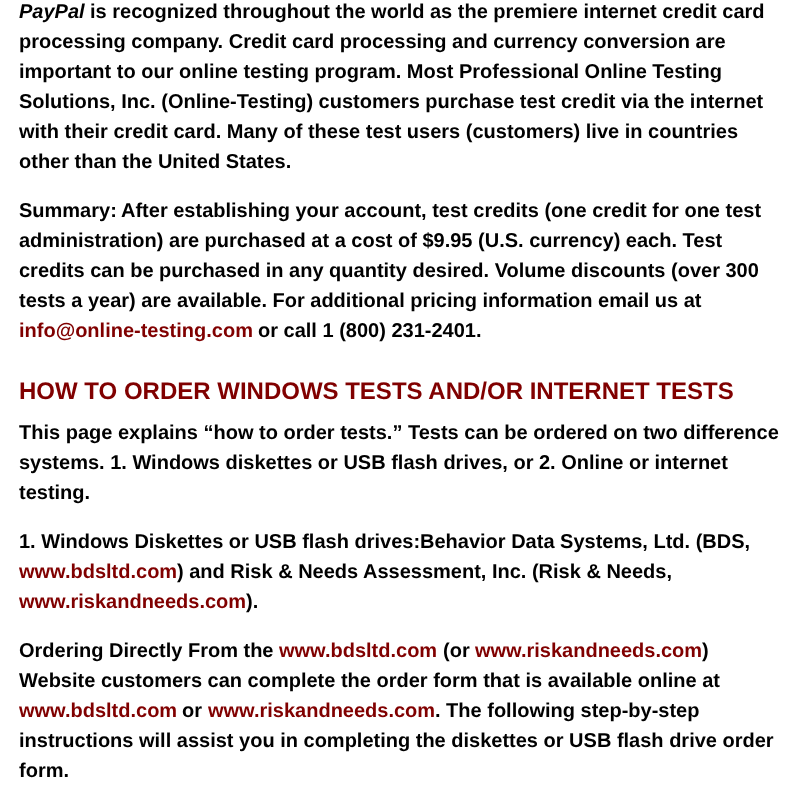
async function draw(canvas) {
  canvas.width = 804;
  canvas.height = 800;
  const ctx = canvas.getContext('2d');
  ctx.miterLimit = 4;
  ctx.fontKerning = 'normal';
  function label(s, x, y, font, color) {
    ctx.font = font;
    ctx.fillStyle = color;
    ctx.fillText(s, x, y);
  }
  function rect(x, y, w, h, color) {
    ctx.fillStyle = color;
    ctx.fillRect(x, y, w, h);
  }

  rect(0, 0, 804, 800, '#fff');
  label('PayPal', 19, 18, 'italic bold 20px Liberation Sans', '#000');
  label('is recognized throughout the world as the premiere internet credit card', 90, 18, 'bold 20px Liberation Sans', '#000');
  label('processing company. Credit card processing and currency conversion are', 19, 48, 'bold 20px Liberation Sans', '#000');
  label('important to our online testing program. Most Professional Online Testing', 19, 78, 'bold 20px Liberation Sans', '#000');
  label('Solutions, Inc. (Online-Testing) customers purchase test credit via the internet', 19, 108, 'bold 20px Liberation Sans', '#000');
  label('with their credit card. Many of these test users (customers) live in countries', 19, 138, 'bold 20px Liberation Sans', '#000');
  label('other than the United States.', 19, 168, 'bold 20px Liberation Sans', '#000');
  label('Summary:', 19, 217, 'bold 20px Liberation Sans', '#000');
  label('After establishing your account, test credits (one credit for one test', 121, 217, 'bold 20px Liberation Sans', '#000');
  label('administration) are purchased at a cost of $9.95 (U.S. currency) each. Test', 19, 247, 'bold 20px Liberation Sans', '#000');
  label('credits can be purchased in any quantity desired. Volume discounts (over 300', 19, 277, 'bold 20px Liberation Sans', '#000');
  label('tests a year) are available. For additional pricing information email us at', 19, 307, 'bold 20px Liberation Sans', '#000');
  label('info@online-testing.com', 19, 337, 'bold 20px Liberation Sans', '#800000');
  label('or call 1 (800) 231-2401.', 258, 337, 'bold 20px Liberation Sans', '#000');
  label('HOW TO ORDER WINDOWS TESTS AND/OR INTERNET TESTS', 19, 399, 'bold 24px Liberation Sans', '#800000');
  label('This page explains “how to order tests.” Tests can be ordered on two difference', 19, 439, 'bold 20px Liberation Sans', '#000');
  label('systems. 1. Windows diskettes or USB flash drives, or 2. Online or internet', 19, 469, 'bold 20px Liberation Sans', '#000');
  label('testing.', 19, 499, 'bold 20px Liberation Sans', '#000');
  label('1. Windows Diskettes or USB flash drives:Behavior Data Systems, Ltd. (BDS,', 19, 548, 'bold 20px Liberation Sans', '#000');
  label('www.bdsltd.com', 19, 578, 'bold 20px Liberation Sans', '#800000');
  label(') and Risk & Needs Assessment, Inc. (Risk & Needs,', 177, 578, 'bold 20px Liberation Sans', '#000');
  label('www.riskandneeds.com', 19, 608, 'bold 20px Liberation Sans', '#800000');
  label(').', 246, 608, 'bold 20px Liberation Sans', '#000');
  label('Ordering Directly From the', 19, 657, 'bold 20px Liberation Sans', '#000');
  label('www.bdsltd.com', 279, 657, 'bold 20px Liberation Sans', '#800000');
  label('(or', 443, 657, 'bold 20px Liberation Sans', '#000');
  label('www.riskandneeds.com', 475, 657, 'bold 20px Liberation Sans', '#800000');
  label(')', 702, 657, 'bold 20px Liberation Sans', '#000');
  label('Website customers can complete the order form that is available online at', 19, 687, 'bold 20px Liberation Sans', '#000');
  label('www.bdsltd.com', 19, 717, 'bold 20px Liberation Sans', '#800000');
  label('or', 182, 717, 'bold 20px Liberation Sans', '#000');
  label('www.riskandneeds.com', 208, 717, 'bold 20px Liberation Sans', '#800000');
  label('. The following step-by-step', 435, 717, 'bold 20px Liberation Sans', '#000');
  label('instructions will assist you in completing the diskettes or USB flash drive order', 19, 747, 'bold 20px Liberation Sans', '#000');
  label('form.', 19, 777, 'bold 20px Liberation Sans', '#000');
}

draw(document.querySelector('canvas'));
